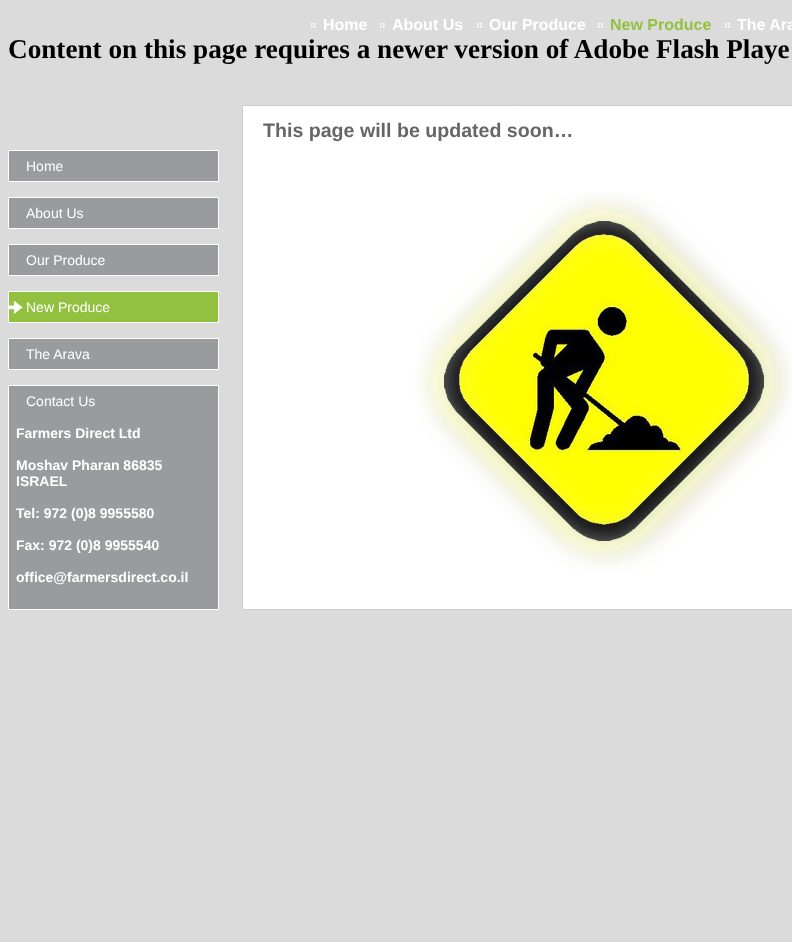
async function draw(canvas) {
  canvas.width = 792;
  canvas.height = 942;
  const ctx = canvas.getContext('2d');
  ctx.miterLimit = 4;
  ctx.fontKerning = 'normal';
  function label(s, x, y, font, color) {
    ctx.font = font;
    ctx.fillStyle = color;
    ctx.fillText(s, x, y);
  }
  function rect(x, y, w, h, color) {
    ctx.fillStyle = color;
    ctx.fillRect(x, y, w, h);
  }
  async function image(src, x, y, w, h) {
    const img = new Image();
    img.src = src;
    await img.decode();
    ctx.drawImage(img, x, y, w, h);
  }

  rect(0, 0, 792, 942, '#dbdbdb');
  await image('assets/img1.png', 311, 23, 5, 5);
  label('Home', 323, 30, 'bold 16px Liberation Sans', '#fff');
  await image('assets/img1.png', 380, 23, 5, 5);
  label('About Us', 392, 30, 'bold 16px Liberation Sans', '#fff');
  await image('assets/img1.png', 477, 23, 5, 5);
  label('Our Produce', 489, 30, 'bold 16px Liberation Sans', '#fff');
  await image('assets/img1.png', 598, 23, 5, 5);
  label('New Produce', 610, 30, 'bold 16px Liberation Sans', '#92c13f');
  await image('assets/img1.png', 725, 23, 5, 5);
  label('The Ara', 737, 30, 'bold 16px Liberation Sans', '#fff');
  label('Content on this page requires a newer version of Adobe Flash Playe', 8, 58, 'bold 27.2px Liberation Serif', '#000');
  ctx.fillStyle = '#fff';
  ctx.beginPath();
  ctx.rect(242.5, 105.5, 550, 504);
  ctx.fill();
  ctx.strokeStyle = '#ccc';
  ctx.stroke();
  label('This page will be updated soon…', 263, 137, 'bold 19.6px Liberation Sans', '#666');
  await image('assets/img2.png', 415, 192, 377, 379);
  ctx.fillStyle = '#9a9b9f';
  ctx.beginPath();
  ctx.rect(8.5, 150.5, 210, 31);
  ctx.fill();
  ctx.strokeStyle = '#fff';
  ctx.stroke();
  label('Home', 26, 171, '14px Liberation Sans', '#fff');
  ctx.fillStyle = '#9a9b9f';
  ctx.beginPath();
  ctx.rect(8.5, 197.5, 210, 31);
  ctx.fill();
  ctx.stroke();
  label('About Us', 26, 218, '14px Liberation Sans', '#fff');
  ctx.fillStyle = '#9a9b9f';
  ctx.beginPath();
  ctx.rect(8.5, 244.5, 210, 31);
  ctx.fill();
  ctx.stroke();
  label('Our Produce', 26, 265, '14px Liberation Sans', '#fff');
  rect(9, 292, 209, 30, '#92c13f');
  await image('assets/img3.png', 9, 301, 14, 13);
  ctx.strokeRect(8.5, 291.5, 210, 31);
  label('New Produce', 26, 312, '14px Liberation Sans', '#fff');
  ctx.fillStyle = '#9a9b9f';
  ctx.beginPath();
  ctx.rect(8.5, 338.5, 210, 31);
  ctx.fill();
  ctx.stroke();
  label('The Arava', 26, 359, '14px Liberation Sans', '#fff');
  ctx.fillStyle = '#9a9b9f';
  ctx.beginPath();
  ctx.rect(8.5, 385.5, 210, 224);
  ctx.fill();
  ctx.stroke();
  label('Contact Us', 26, 406, '14px Liberation Sans', '#fff');
  label('Farmers Direct Ltd', 16, 438, 'bold 14px Liberation Sans', '#fff');
  label('Moshav Pharan 86835', 16, 470, 'bold 14px Liberation Sans', '#fff');
  label('ISRAEL', 16, 486, 'bold 14px Liberation Sans', '#fff');
  label('Tel: 972 (0)8 9955580', 16, 518, 'bold 14px Liberation Sans', '#fff');
  label('Fax: 972 (0)8 9955540', 16, 550, 'bold 14px Liberation Sans', '#fff');
  label('office@farmersdirect.co.il', 16, 582, 'bold 14px Liberation Sans', '#fff');
}

draw(document.querySelector('canvas'));
